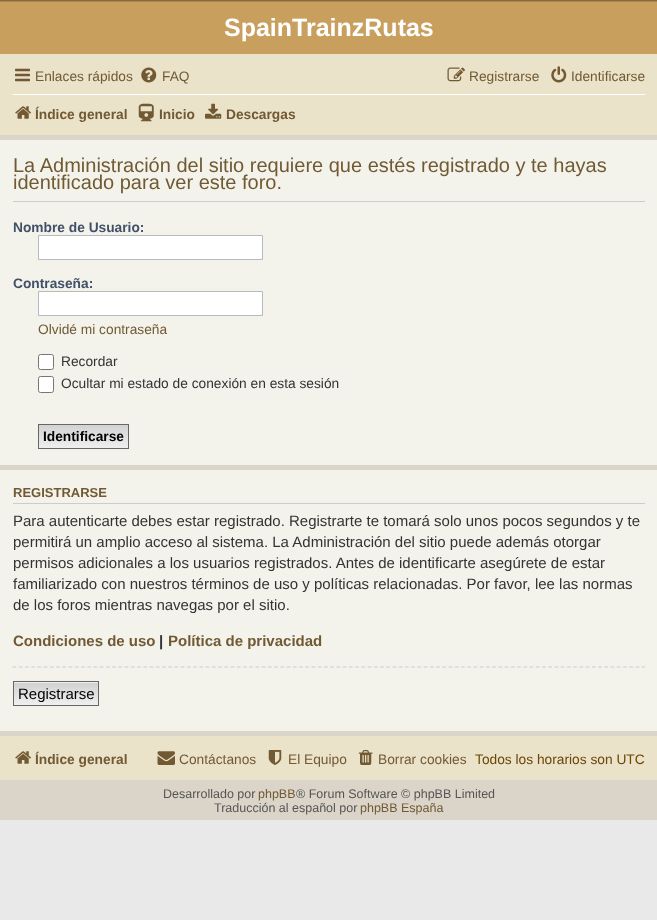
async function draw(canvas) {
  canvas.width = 657;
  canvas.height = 920;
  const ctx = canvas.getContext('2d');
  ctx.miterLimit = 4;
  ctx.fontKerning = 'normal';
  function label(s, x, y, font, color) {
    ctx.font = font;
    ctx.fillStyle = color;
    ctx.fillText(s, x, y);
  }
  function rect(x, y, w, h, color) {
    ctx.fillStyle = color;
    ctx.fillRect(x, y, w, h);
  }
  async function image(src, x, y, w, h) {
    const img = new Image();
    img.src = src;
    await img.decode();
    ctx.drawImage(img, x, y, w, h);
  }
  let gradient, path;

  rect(0, 0, 657, 920, '#e9e9e9');
  rect(0, 135, 657, 685, '#dbd5c9');
  gradient = ctx.createLinearGradient(329, 0, 329, 115);
  gradient.addColorStop(0, '#715a33');
  gradient.addColorStop(0.02, '#c99f5e');
  ctx.fillStyle = gradient;
  ctx.fillRect(0, 0, 657, 54);
  label('SpainTrainzRutas', 224, 36, 'bold 25px Liberation Sans', '#fff');
  rect(0, 54, 657, 81, '#ebe2ca');
  await image('assets/img1.png', 15, 68, 15, 14);
  label('Enlaces rápidos', 35, 81, '13.75px Liberation Sans', '#715a33');
  await image('assets/img2.png', 141, 67, 16, 16);
  label('FAQ', 162, 81, '13.75px Liberation Sans', '#715a33');
  await image('assets/img3.png', 447, 67, 18, 15);
  label('Registrarse', 469, 81, '13.75px Liberation Sans', '#715a33');
  await image('assets/img4.png', 551, 66, 16, 17);
  label('Identificarse', 571, 81, '13.75px Liberation Sans', '#715a33');
  rect(13, 94, 632, 1, '#fff');
  await image('assets/img5.png', 15, 106, 16, 13);
  label('Índice general', 35, 119, 'bold 13.75px Liberation Sans', '#715a33');
  await image('assets/img6.png', 138, 103, 16, 19);
  label('Inicio', 159, 119, 'bold 13.75px Liberation Sans', '#715a33');
  await image('assets/img7.png', 205, 103, 17, 16);
  label('Descargas', 226, 119, 'bold 13.75px Liberation Sans', '#715a33');
  rect(0, 140, 657, 325, '#f3f3ec');
  rect(13, 201, 632, 1, '#ccc');
  label('La Administración del sitio requiere que estés registrado y te hayas', 13, 172, '20px Liberation Sans', '#715a33');
  label('identificado para ver este foro.', 13, 189, '20px Liberation Sans', '#715a33');
  label('Nombre de Usuario:', 13, 232, 'bold 13.75px Liberation Sans', '#425067');
  ctx.fillStyle = '#fff';
  ctx.beginPath();
  ctx.rect(38.5, 235.5, 224, 24);
  ctx.fill();
  ctx.strokeStyle = '#b4bac0';
  ctx.stroke();
  label('Contraseña:', 13, 288, 'bold 13.75px Liberation Sans', '#425067');
  ctx.fillStyle = '#fff';
  ctx.beginPath();
  ctx.rect(38.5, 291.5, 224, 24);
  ctx.fill();
  ctx.stroke();
  label('Olvidé mi contraseña', 38, 334, '13.75px Liberation Sans', '#715a33');
  ctx.fillStyle = '#fff';
  ctx.beginPath();
  ctx.roundRect(38.5, 354.5, 15, 15, 2);
  ctx.fill();
  ctx.strokeStyle = '#767676';
  ctx.stroke();
  label('Recordar', 61, 366, '13.75px Liberation Sans', '#333');
  ctx.fillStyle = '#fff';
  ctx.beginPath();
  ctx.roundRect(38.5, 376.5, 15, 16, 2);
  ctx.fill();
  ctx.stroke();
  label('Ocultar mi estado de conexión en esta sesión', 61, 388, '13.75px Liberation Sans', '#333');
  gradient = ctx.createLinearGradient(83, 425, 83, 448);
  gradient.addColorStop(0, '#d2d2d2');
  gradient.addColorStop(1, '#efefef');
  ctx.fillStyle = gradient;
  ctx.fillRect(39, 425, 89, 23);
  ctx.strokeStyle = '#666';
  ctx.strokeRect(38.5, 424.5, 90, 24);
  label('Identificarse', 43, 441, 'bold 13.75px Liberation Sans', '#000');
  rect(0, 470, 657, 261, '#f3f3ec');
  rect(13, 503, 632, 1, '#ccc');
  label('REGISTRARSE', 13, 497, 'bold 13px Liberation Sans', '#715a33');
  label('Para autenticarte debes estar registrado. Registrarte te tomará solo unos pocos segundos y te', 13, 526, '15px Liberation Sans', '#333');
  label('permitirá un amplio acceso al sistema. La Administración del sitio puede además otorgar', 13, 547, '15px Liberation Sans', '#333');
  label('permisos adicionales a los usuarios registrados. Antes de identificarte asegúrete de estar', 13, 568, '15px Liberation Sans', '#333');
  label('familiarizado con nuestros términos de uso y políticas relacionadas. Por favor, lee las normas', 13, 589, '15px Liberation Sans', '#333');
  label('de los foros mientras navegas por el sitio.', 13, 610, '15px Liberation Sans', '#333');
  label('Condiciones de uso', 13, 646, 'bold 15px Liberation Sans', '#715a33');
  label('|', 159, 646, 'bold 15px Liberation Sans', '#333');
  label('Política de privacidad', 168, 646, 'bold 15px Liberation Sans', '#715a33');
  path = new Path2D('M12.5 667H645');
  ctx.strokeStyle = '#ccc';
  ctx.lineWidth = 1.2;
  ctx.setLineDash([3.75, 2.48]);
  ctx.stroke(path);
  rect(14, 682, 84, 1, '#efefef');
  gradient = ctx.createLinearGradient(56, 683, 56, 705);
  gradient.addColorStop(0, '#d2d2d2');
  gradient.addColorStop(1, '#efefef');
  ctx.fillStyle = gradient;
  ctx.fillRect(14, 683, 84, 22);
  ctx.strokeStyle = '#666';
  ctx.lineWidth = 1;
  ctx.setLineDash([]);
  ctx.strokeRect(13.5, 681.5, 85, 24);
  label('Registrarse', 18, 699, '15px Liberation Sans', '#000');
  rect(0, 736, 657, 44, '#ebe2ca');
  await image('assets/img5.png', 15, 751, 16, 13);
  label('Índice general', 35, 764, 'bold 13.75px Liberation Sans', '#715a33');
  await image('assets/img8.png', 157, 751, 18, 14);
  label('Contáctanos', 179, 764, '13.75px Liberation Sans', '#715a33');
  await image('assets/img9.png', 268, 750, 14, 15);
  label('El Equipo', 288, 764, '13.75px Liberation Sans', '#715a33');
  await image('assets/img10.png', 358, 750, 15, 15);
  label('Borrar cookies', 378, 764, '13.75px Liberation Sans', '#715a33');
  label('Todos los horarios son UTC', 475, 764, '13.75px Liberation Sans', '#6b4604');
  label('Desarrollado por', 163, 798, '12.5px Liberation Sans', '#555');
  label('phpBB', 258, 798, '12.5px Liberation Sans', '#715a33');
  label('® Forum Software © phpBB Limited', 296, 798, '12.5px Liberation Sans', '#555');
  label('Traducción al español por', 214, 812, '12.5px Liberation Sans', '#555');
  label('phpBB España', 360, 812, '12.5px Liberation Sans', '#715a33');
}

draw(document.querySelector('canvas'));
